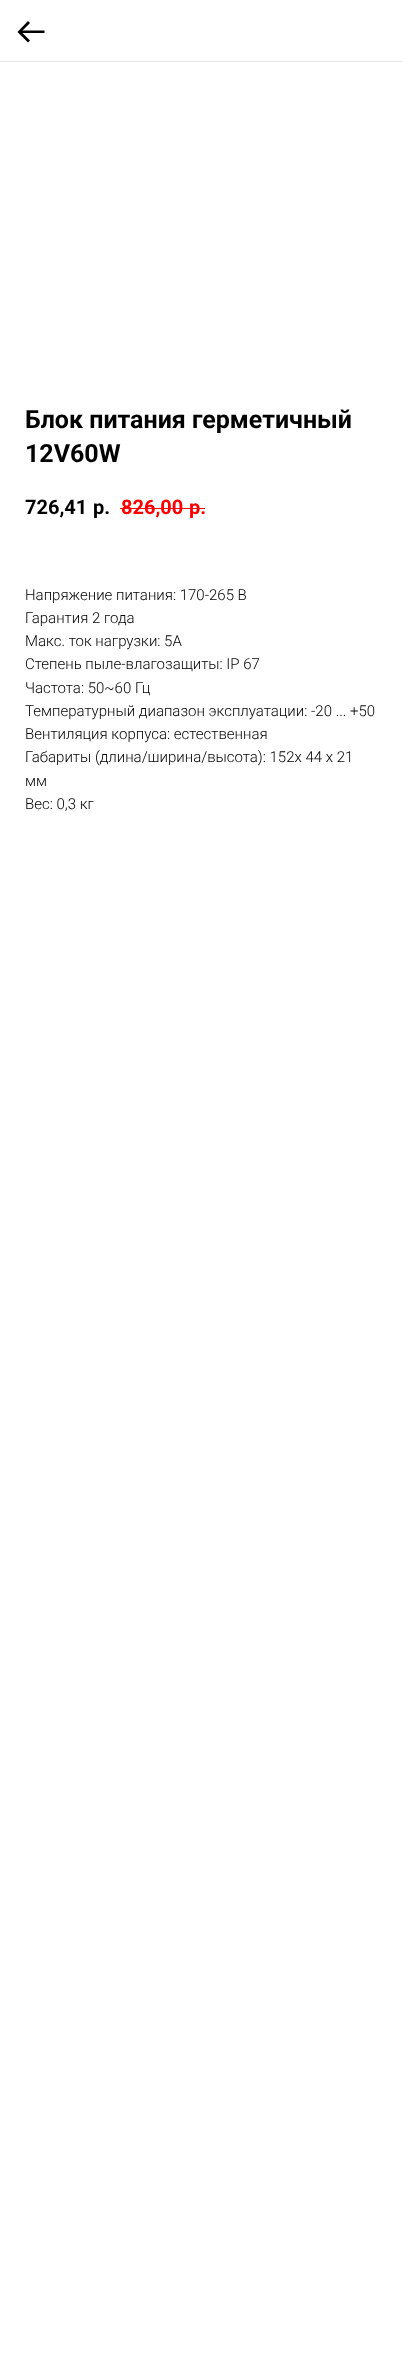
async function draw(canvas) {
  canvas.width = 403;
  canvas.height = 2376;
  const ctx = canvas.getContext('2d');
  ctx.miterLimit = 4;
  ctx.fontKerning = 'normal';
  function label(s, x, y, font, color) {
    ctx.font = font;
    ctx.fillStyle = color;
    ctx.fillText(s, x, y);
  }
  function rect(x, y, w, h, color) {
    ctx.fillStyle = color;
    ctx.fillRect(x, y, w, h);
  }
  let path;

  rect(0, 0, 403, 2376, '#fff');
  rect(0, 61, 403, 1, '#e6e6e6');
  ctx.fillStyle = '#000';
  path = new Path2D('M28 21L30 23L22.5 30.5H44.5V33H22.5L30 40.5L28 42.5L17.5 32Z');
  ctx.fill(path);
  label('Блок питания герметичный', 25, 428, 'bold 25px Roboto', '#000');
  label('12V60W', 25, 462, 'bold 25px Roboto', '#000');
  label('726,41', 25, 514, 'bold 20px Roboto', '#000');
  label('р.', 93, 514, 'bold 20px Roboto', '#000');
  label('826,00', 121, 514, 'bold 20px Roboto', '#f00');
  label('р.', 189, 514, 'bold 20px Roboto', '#f00');
  rect(120, 508, 85, 1, '#f00');
  label('Напряжение питания: 170-265 В', 25, 600, '300 15px Roboto', '#000');
  label('Гарантия 2 года', 25, 623, '300 15px Roboto', '#000');
  label('Макс. ток нагрузки: 5А', 25, 646, '300 15px Roboto', '#000');
  label('Степень пыле-влагозащиты: IP 67', 25, 669, '300 15px Roboto', '#000');
  label('Частота: 50~60 Гц', 25, 693, '300 15px Roboto', '#000');
  label('Температурный диапазон эксплуатации: -20 ... +50', 25, 716, '300 15px Roboto', '#000');
  label('Вентиляция корпуса: естественная', 25, 739, '300 15px Roboto', '#000');
  label('Габариты (длина/ширина/высота): 152х 44 х 21', 25, 762, '300 15px Roboto', '#000');
  label('мм', 25, 786, '300 15px Roboto', '#000');
  label('Вес: 0,3 кг', 25, 809, '300 15px Roboto', '#000');
}

draw(document.querySelector('canvas'));
